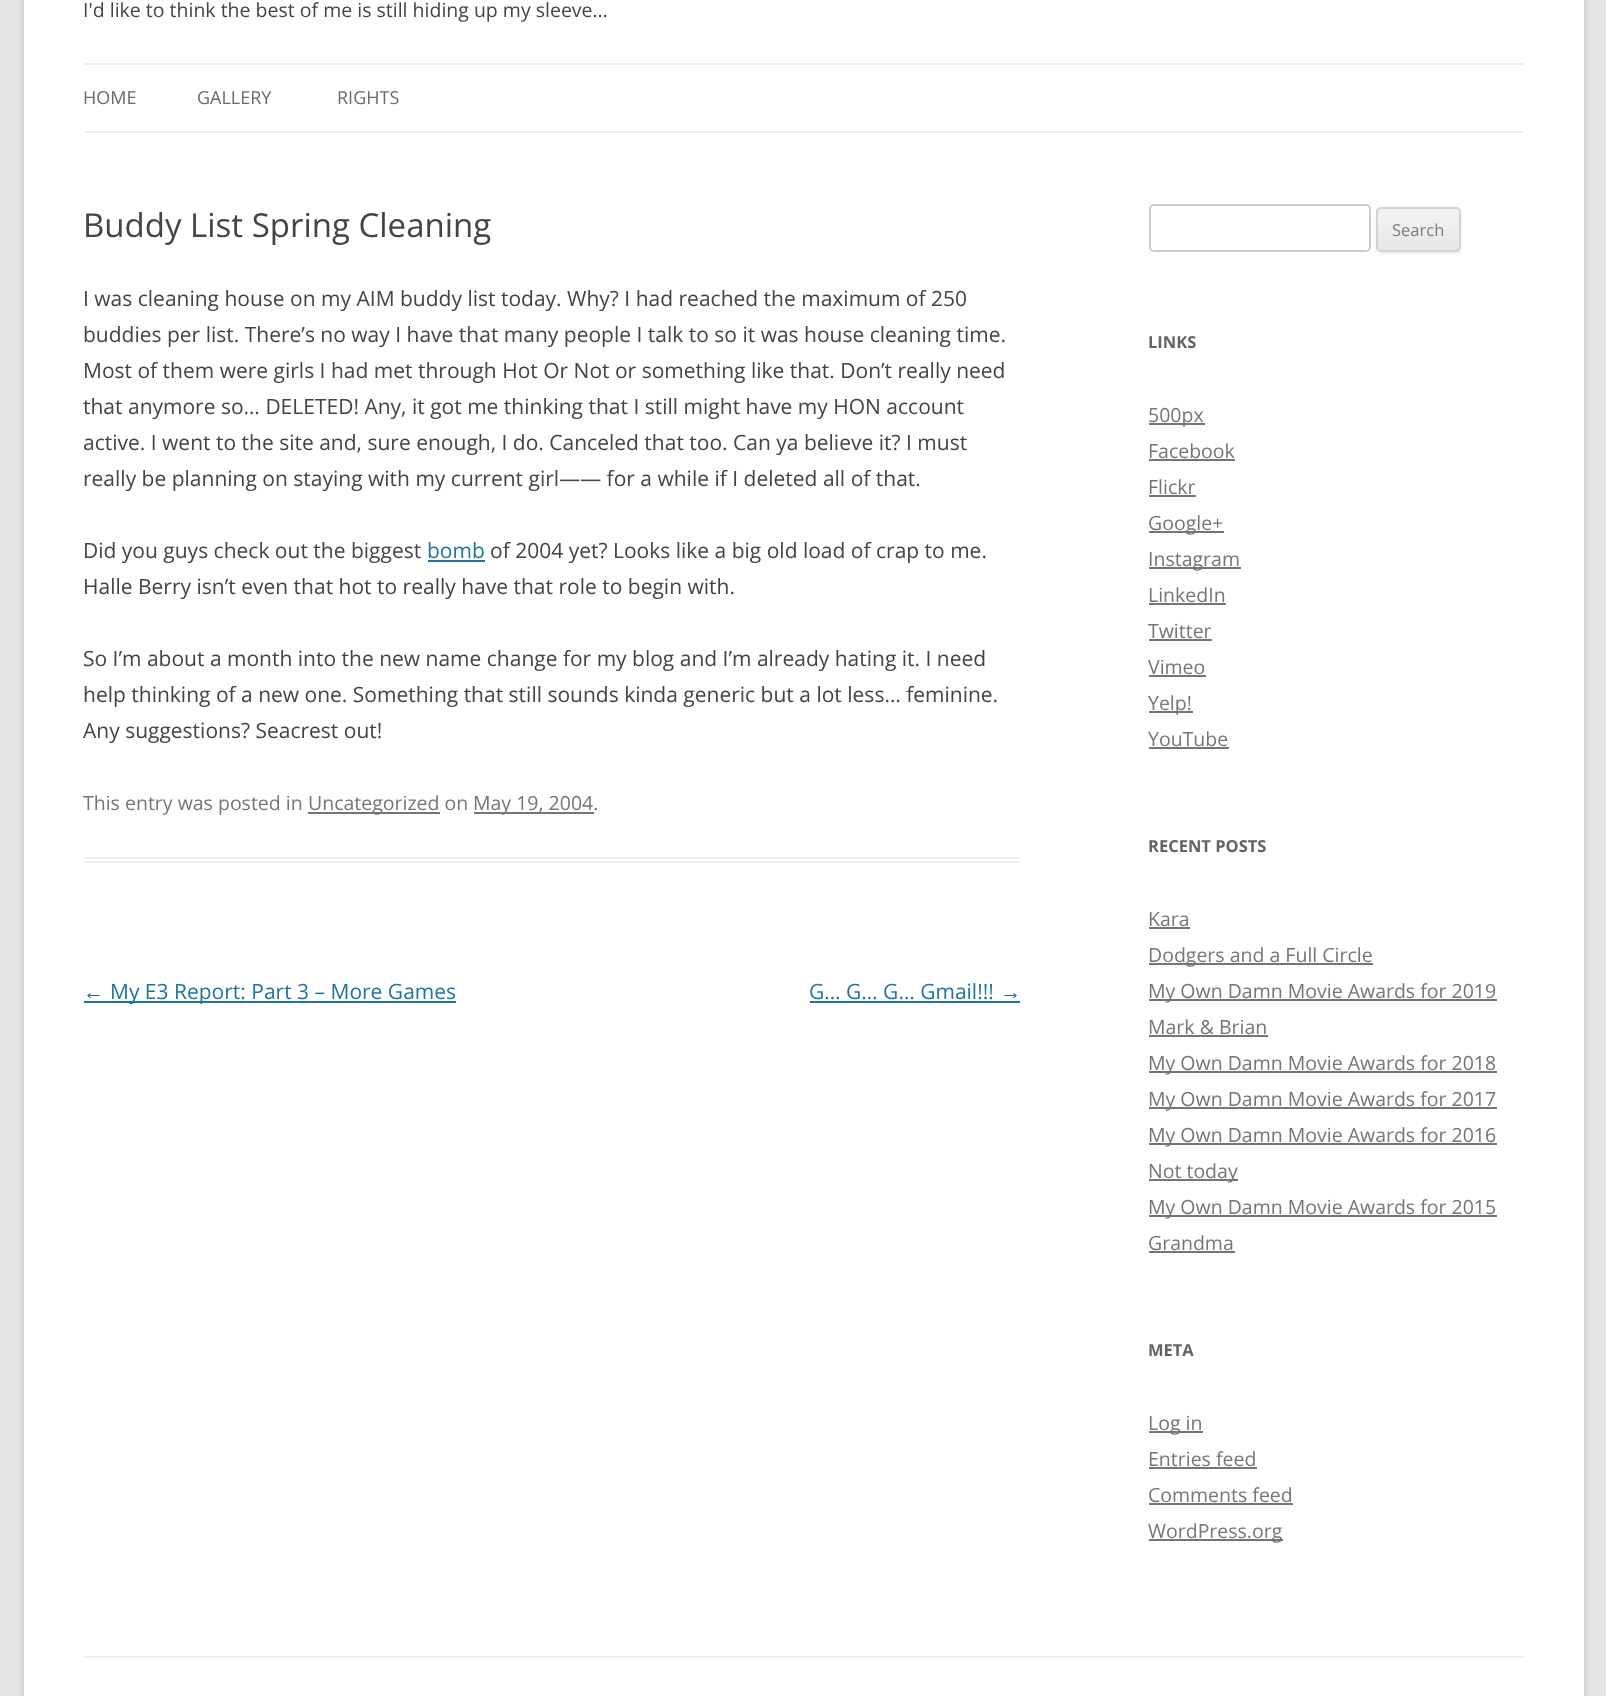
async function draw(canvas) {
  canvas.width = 1606;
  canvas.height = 1696;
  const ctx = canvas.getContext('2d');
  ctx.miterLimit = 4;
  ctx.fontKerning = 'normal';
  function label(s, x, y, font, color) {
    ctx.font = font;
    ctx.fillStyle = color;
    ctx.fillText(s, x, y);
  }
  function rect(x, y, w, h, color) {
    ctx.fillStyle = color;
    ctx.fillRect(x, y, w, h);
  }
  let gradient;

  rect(0, 0, 1606, 1696, '#e6e6e6');
  ctx.fillStyle = '#6464644d';
  ctx.filter = 'blur(4.5px)';
  ctx.beginPath();
  ctx.rect(24, -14, 1560, 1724);
  ctx.fill();
  ctx.filter = 'none';
  rect(24, 0, 1560, 1696, '#fff');
  label('I\'d like to think the best of me is still hiding up my sleeve…', 83, 17, '19.5px Open Sans', '#444');
  rect(84, 63, 1440, 2, '#ededed');
  rect(84, 131, 1440, 2, '#ededed');
  label('HOME', 83, 104, '18px Open Sans', '#6a6a6a');
  label('GALLERY', 197, 104, '18px Open Sans', '#6a6a6a');
  label('RIGHTS', 337, 104, '18px Open Sans', '#6a6a6a');
  rect(84, 857, 936, 2, '#ededed');
  rect(84, 861, 936, 2, '#ededed');
  label('Buddy List Spring Cleaning', 83, 237, '33px Open Sans', '#444');
  label('I was cleaning house on my AIM buddy list today. Why? I had reached the maximum of 250', 83, 306, '21px Open Sans', '#444');
  label('buddies per list. There’s no way I have that many people I talk to so it was house cleaning time.', 83, 342, '21px Open Sans', '#444');
  label('Most of them were girls I had met through Hot Or Not or something like that. Don’t really need', 83, 378, '21px Open Sans', '#444');
  label('that anymore so… DELETED! Any, it got me thinking that I still might have my HON account', 83, 414, '21px Open Sans', '#444');
  label('active. I went to the site and, sure enough, I do. Canceled that too. Can ya believe it? I must', 83, 450, '21px Open Sans', '#444');
  label('really be planning on staying with my current girl—— for a while if I deleted all of that.', 83, 486, '21px Open Sans', '#444');
  label('Did you guys check out the biggest', 83, 558, '21px Open Sans', '#444');
  label('bomb', 427, 558, '21px Open Sans', '#21759b');
  rect(428, 560, 57, 2, '#21759b');
  label('of 2004 yet? Looks like a big old load of crap to me.', 490, 558, '21px Open Sans', '#444');
  label('Halle Berry isn’t even that hot to really have that role to begin with.', 83, 594, '21px Open Sans', '#444');
  label('So I’m about a month into the new name change for my blog and I’m already hating it. I need', 83, 666, '21px Open Sans', '#444');
  label('help thinking of a new one. Something that still sounds kinda generic but a lot less… feminine.', 83, 702, '21px Open Sans', '#444');
  label('Any suggestions? Seacrest out!', 83, 738, '21px Open Sans', '#444');
  label('This entry was posted in', 83, 810, '19.5px Open Sans', '#757575');
  rect(308, 812, 132, 2, '#757575');
  label('Uncategorized on', 308, 810, '19.5px Open Sans', '#757575');
  rect(474, 812, 120, 2, '#757575');
  label('May 19, 2004.', 473, 810, '19.5px Open Sans', '#757575');
  label('←', 83, 999, '21px Liberation Sans', '#21759b');
  rect(84, 1001, 372, 2, '#21759b');
  label('My E3 Report: Part 3 – More Games', 110, 999, '21px Open Sans', '#21759b');
  label('G… G… G… Gmail!!!', 809, 999, '21px Open Sans', '#21759b');
  label('→', 1000, 999, '21px Liberation Sans', '#21759b');
  rect(810, 1001, 210, 2, '#21759b');
  ctx.beginPath();
  ctx.roundRect(1150, 205, 220, 46, 4);
  ctx.strokeStyle = '#ccc';
  ctx.lineWidth = 2;
  ctx.stroke();
  ctx.fillStyle = '#4040401a';
  ctx.filter = 'blur(1.5px)';
  ctx.beginPath();
  ctx.roundRect(1376, 209, 85, 45, 5);
  ctx.fill();
  ctx.filter = 'none';
  ctx.save();
  ctx.beginPath();
  ctx.roundRect(1376, 207, 85, 45, 5);
  ctx.clip();
  gradient = ctx.createLinearGradient(1418, 209, 1418, 251);
  gradient.addColorStop(0, '#f4f4f4');
  gradient.addColorStop(1, '#e6e6e6');
  ctx.fillStyle = gradient;
  ctx.fillRect(1376, 209, 85, 42);
  ctx.restore();
  ctx.beginPath();
  ctx.roundRect(1377, 208, 83, 43, 4);
  ctx.strokeStyle = '#d2d2d2';
  ctx.stroke();
  label('Search', 1392, 236, '16.5px Open Sans', '#7c7c7c');
  label('LINKS', 1148, 348, 'bold 16.5px Open Sans', '#636363');
  rect(1149, 423, 56, 2, '#757575');
  label('500px', 1148, 422, '19.5px Open Sans', '#757575');
  label('Facebook', 1148, 458, '19.5px Open Sans', '#757575');
  rect(1149, 459, 86, 2, '#757575');
  label('Flickr', 1148, 494, '19.5px Open Sans', '#757575');
  rect(1149, 495, 47, 2, '#757575');
  rect(1149, 531, 75, 2, '#757575');
  label('Google+', 1148, 530, '19.5px Open Sans', '#757575');
  rect(1149, 567, 92, 2, '#757575');
  label('Instagram', 1148, 566, '19.5px Open Sans', '#757575');
  label('LinkedIn', 1148, 602, '19.5px Open Sans', '#757575');
  rect(1149, 603, 77, 2, '#757575');
  label('Twitter', 1148, 638, '19.5px Open Sans', '#757575');
  rect(1149, 639, 63, 2, '#757575');
  label('Vimeo', 1148, 674, '19.5px Open Sans', '#757575');
  rect(1149, 675, 57, 2, '#757575');
  rect(1149, 711, 44, 2, '#757575');
  label('Yelp!', 1148, 710, '19.5px Open Sans', '#757575');
  label('YouTube', 1148, 746, '19.5px Open Sans', '#757575');
  rect(1149, 747, 80, 2, '#757575');
  label('RECENT POSTS', 1148, 852, 'bold 16.5px Open Sans', '#636363');
  label('Kara', 1148, 926, '19.5px Open Sans', '#757575');
  rect(1149, 927, 41, 2, '#757575');
  rect(1149, 963, 224, 2, '#757575');
  label('Dodgers and a Full Circle', 1148, 962, '19.5px Open Sans', '#757575');
  rect(1149, 999, 348, 2, '#757575');
  label('My Own Damn Movie Awards for 2019', 1148, 998, '19.5px Open Sans', '#757575');
  label('Mark & Brian', 1148, 1034, '19.5px Open Sans', '#757575');
  rect(1149, 1035, 119, 2, '#757575');
  rect(1149, 1071, 348, 2, '#757575');
  label('My Own Damn Movie Awards for 2018', 1148, 1070, '19.5px Open Sans', '#757575');
  rect(1149, 1107, 348, 2, '#757575');
  label('My Own Damn Movie Awards for 2017', 1148, 1106, '19.5px Open Sans', '#757575');
  rect(1149, 1143, 348, 2, '#757575');
  label('My Own Damn Movie Awards for 2016', 1148, 1142, '19.5px Open Sans', '#757575');
  rect(1149, 1179, 89, 2, '#757575');
  label('Not today', 1148, 1178, '19.5px Open Sans', '#757575');
  rect(1149, 1215, 348, 2, '#757575');
  label('My Own Damn Movie Awards for 2015', 1148, 1214, '19.5px Open Sans', '#757575');
  label('Grandma', 1148, 1250, '19.5px Open Sans', '#757575');
  rect(1149, 1251, 86, 2, '#757575');
  label('META', 1148, 1356, 'bold 16.5px Open Sans', '#636363');
  rect(1149, 1431, 54, 2, '#757575');
  label('Log in', 1148, 1430, '19.5px Open Sans', '#757575');
  label('Entries feed', 1148, 1466, '19.5px Open Sans', '#757575');
  rect(1149, 1467, 108, 2, '#757575');
  label('Comments feed', 1148, 1502, '19.5px Open Sans', '#757575');
  rect(1149, 1503, 144, 2, '#757575');
  rect(1149, 1539, 134, 2, '#757575');
  label('WordPress.org', 1148, 1538, '19.5px Open Sans', '#757575');
  rect(84, 1656, 1440, 2, '#ededed');
}

draw(document.querySelector('canvas'));
